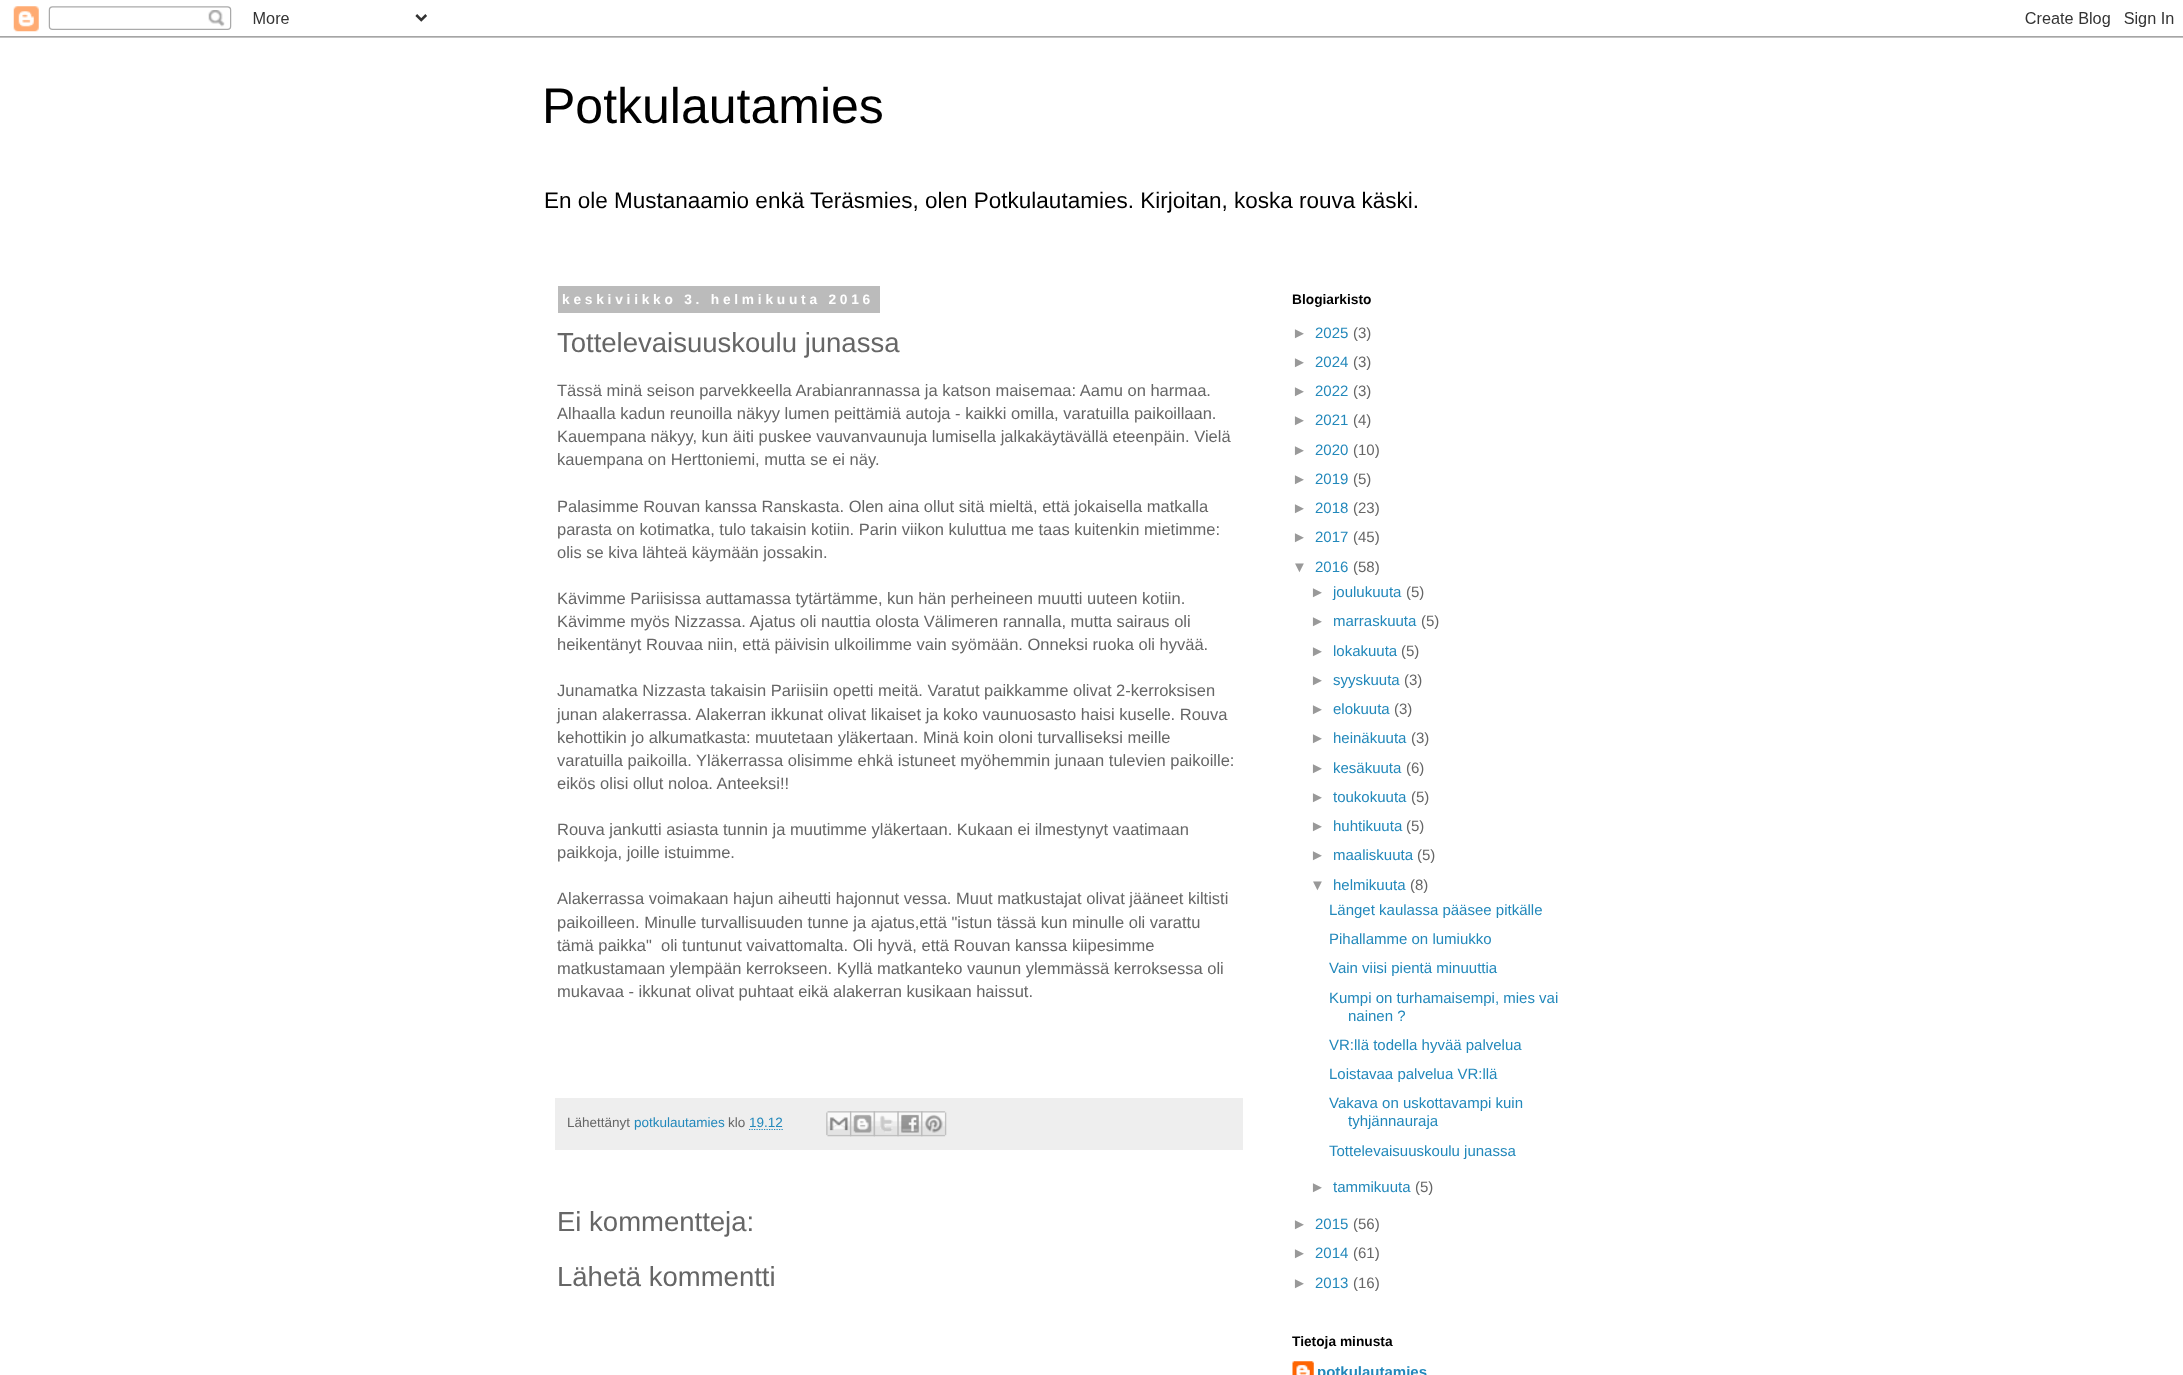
async function draw(canvas) {
  canvas.width = 2183;
  canvas.height = 1375;
  const ctx = canvas.getContext('2d');
  ctx.miterLimit = 4;
  ctx.fontKerning = 'normal';
  function label(s, x, y, font, color) {
    ctx.font = font;
    ctx.fillStyle = color;
    ctx.fillText(s, x, y);
  }
  function rect(x, y, w, h, color) {
    ctx.fillStyle = color;
    ctx.fillRect(x, y, w, h);
  }
  async function image(src, x, y, w, h) {
    const img = new Image();
    img.src = src;
    await img.decode();
    ctx.drawImage(img, x, y, w, h);
  }
  let path;

  rect(0, 0, 2183, 1375, '#fff');
  await image('assets/img1.png', 0, 6, 2183, 32);
  label('Potkulautamies', 542, 123, '50px Liberation Sans', '#000');
  label('En ole Mustanaamio enkä Teräsmies, olen Potkulautamies. Kirjoitan, koska rouva käski.', 544, 208, '22.5px Liberation Sans', '#000');
  rect(558, 286, 322, 27, '#bbb');
  ctx.letterSpacing = '3.75px';
  label('keskiviikko 3. helmikuuta 2016', 562, 304, 'bold 13.75px Liberation Sans', '#fff');
  ctx.letterSpacing = '0px';
  label('Tottelevaisuuskoulu junassa', 557, 352, '27.5px Liberation Sans', '#666');
  label('Tässä minä seison parvekkeella Arabianrannassa ja katson maisemaa: Aamu on harmaa.', 557, 396, '16.5px Liberation Sans', '#666');
  label('Alhaalla kadun reunoilla näkyy lumen peittämiä autoja - kaikki omilla, varatuilla paikoillaan.', 557, 419, '16.5px Liberation Sans', '#666');
  label('Kauempana näkyy, kun äiti puskee vauvanvaunuja lumisella jalkakäytävällä eteenpäin. Vielä', 557, 442, '16.5px Liberation Sans', '#666');
  label('kauempana on Herttoniemi, mutta se ei näy.', 557, 465, '16.5px Liberation Sans', '#666');
  label('Palasimme Rouvan kanssa Ranskasta. Olen aina ollut sitä mieltä, että jokaisella matkalla', 557, 512, '16.5px Liberation Sans', '#666');
  label('parasta on kotimatka, tulo takaisin kotiin. Parin viikon kuluttua me taas kuitenkin mietimme:', 557, 535, '16.5px Liberation Sans', '#666');
  label('olis se kiva lähteä käymään jossakin.', 557, 558, '16.5px Liberation Sans', '#666');
  label('Kävimme Pariisissa auttamassa tytärtämme, kun hän perheineen muutti uuteen kotiin.', 557, 604, '16.5px Liberation Sans', '#666');
  label('Kävimme myös Nizzassa. Ajatus oli nauttia olosta Välimeren rannalla, mutta sairaus oli', 557, 627, '16.5px Liberation Sans', '#666');
  label('heikentänyt Rouvaa niin, että päivisin ulkoilimme vain syömään. Onneksi ruoka oli hyvää.', 557, 650, '16.5px Liberation Sans', '#666');
  label('Junamatka Nizzasta takaisin Pariisiin opetti meitä. Varatut paikkamme olivat 2-kerroksisen', 557, 696, '16.5px Liberation Sans', '#666');
  label('junan alakerrassa. Alakerran ikkunat olivat likaiset ja koko vaunuosasto haisi kuselle. Rouva', 557, 720, '16.5px Liberation Sans', '#666');
  label('kehottikin jo alkumatkasta: muutetaan yläkertaan. Minä koin oloni turvalliseksi meille', 557, 743, '16.5px Liberation Sans', '#666');
  label('varatuilla paikoilla. Yläkerrassa olisimme ehkä istuneet myöhemmin junaan tulevien paikoille:', 557, 766, '16.5px Liberation Sans', '#666');
  label('eikös olisi ollut noloa. Anteeksi!!', 557, 789, '16.5px Liberation Sans', '#666');
  label('Rouva jankutti asiasta tunnin ja muutimme yläkertaan. Kukaan ei ilmestynyt vaatimaan', 557, 835, '16.5px Liberation Sans', '#666');
  label('paikkoja, joille istuimme.', 557, 858, '16.5px Liberation Sans', '#666');
  label('Alakerrassa voimakaan hajun aiheutti hajonnut vessa. Muut matkustajat olivat jääneet kiltisti', 557, 904, '16.5px Liberation Sans', '#666');
  label('paikoilleen. Minulle turvallisuuden tunne ja ajatus,että "istun tässä kun minulle oli varattu', 557, 928, '16.5px Liberation Sans', '#666');
  label('tämä paikka"  oli tuntunut vaivattomalta. Oli hyvä, että Rouvan kanssa kiipesimme', 557, 951, '16.5px Liberation Sans', '#666');
  label('matkustamaan ylempään kerrokseen. Kyllä matkanteko vaunun ylemmässä kerroksessa oli', 557, 974, '16.5px Liberation Sans', '#666');
  label('mukavaa - ikkunat olivat puhtaat eikä alakerran kusikaan haissut.', 557, 997, '16.5px Liberation Sans', '#666');
  rect(555, 1098, 688, 52, '#eee');
  label('Lähettänyt', 567, 1127, '13.5px Liberation Sans', '#666');
  label('potkulautamies', 634, 1127, '13.5px Liberation Sans', '#28b');
  label('klo', 728, 1127, '13.5px Liberation Sans', '#666');
  label('19.12', 749, 1127, '13.5px Liberation Sans', '#28b');
  path = new Path2D('M749 1129.5H783');
  ctx.strokeStyle = '#28b';
  ctx.lineWidth = 1.2;
  ctx.setLineDash([1.25, 1.25]);
  ctx.stroke(path);
  await image('assets/img2.png', 826, 1111, 26, 26);
  await image('assets/img3.png', 850, 1111, 25, 26);
  await image('assets/img4.png', 873, 1111, 26, 26);
  await image('assets/img5.png', 897, 1111, 26, 26);
  await image('assets/img6.png', 921, 1111, 26, 26);
  label('Ei kommentteja:', 557, 1231, '27.5px Liberation Sans', '#666');
  label('Lähetä kommentti', 557, 1286, '27.5px Liberation Sans', '#666');
  label('Blogiarkisto', 1292, 304, 'bold 13.75px Liberation Sans', '#000');
  label('►', 1292, 338, '15px Liberation Sans', '#999');
  label('2025', 1315, 338, '15px Liberation Sans', '#28b');
  label('(3)', 1353, 338, '15px Liberation Sans', '#666');
  label('►', 1292, 367, '15px Liberation Sans', '#999');
  label('2024', 1315, 367, '15px Liberation Sans', '#28b');
  label('(3)', 1353, 367, '15px Liberation Sans', '#666');
  label('►', 1292, 396, '15px Liberation Sans', '#999');
  label('2022', 1315, 396, '15px Liberation Sans', '#28b');
  label('(3)', 1353, 396, '15px Liberation Sans', '#666');
  label('►', 1292, 425, '15px Liberation Sans', '#999');
  label('2021', 1315, 425, '15px Liberation Sans', '#28b');
  label('(4)', 1353, 425, '15px Liberation Sans', '#666');
  label('►', 1292, 455, '15px Liberation Sans', '#999');
  label('2020', 1315, 455, '15px Liberation Sans', '#28b');
  label('(10)', 1353, 455, '15px Liberation Sans', '#666');
  label('►', 1292, 484, '15px Liberation Sans', '#999');
  label('2019', 1315, 484, '15px Liberation Sans', '#28b');
  label('(5)', 1353, 484, '15px Liberation Sans', '#666');
  label('►', 1292, 513, '15px Liberation Sans', '#999');
  label('2018', 1315, 513, '15px Liberation Sans', '#28b');
  label('(23)', 1353, 513, '15px Liberation Sans', '#666');
  label('►', 1292, 542, '15px Liberation Sans', '#999');
  label('2017', 1315, 542, '15px Liberation Sans', '#28b');
  label('(45)', 1353, 542, '15px Liberation Sans', '#666');
  label('▼', 1292, 572, '15px Liberation Sans', '#999');
  label('2016', 1315, 572, '15px Liberation Sans', '#28b');
  label('(58)', 1353, 572, '15px Liberation Sans', '#666');
  label('►', 1310, 597, '15px Liberation Sans', '#999');
  label('joulukuuta', 1333, 597, '15px Liberation Sans', '#28b');
  label('(5)', 1406, 597, '15px Liberation Sans', '#666');
  label('►', 1310, 626, '15px Liberation Sans', '#999');
  label('marraskuuta', 1333, 626, '15px Liberation Sans', '#28b');
  label('(5)', 1421, 626, '15px Liberation Sans', '#666');
  label('►', 1310, 656, '15px Liberation Sans', '#999');
  label('lokakuuta', 1333, 656, '15px Liberation Sans', '#28b');
  label('(5)', 1401, 656, '15px Liberation Sans', '#666');
  label('►', 1310, 685, '15px Liberation Sans', '#999');
  label('syyskuuta', 1333, 685, '15px Liberation Sans', '#28b');
  label('(3)', 1404, 685, '15px Liberation Sans', '#666');
  label('►', 1310, 714, '15px Liberation Sans', '#999');
  label('elokuuta', 1333, 714, '15px Liberation Sans', '#28b');
  label('(3)', 1394, 714, '15px Liberation Sans', '#666');
  label('►', 1310, 743, '15px Liberation Sans', '#999');
  label('heinäkuuta', 1333, 743, '15px Liberation Sans', '#28b');
  label('(3)', 1411, 743, '15px Liberation Sans', '#666');
  label('►', 1310, 773, '15px Liberation Sans', '#999');
  label('kesäkuuta', 1333, 773, '15px Liberation Sans', '#28b');
  label('(6)', 1406, 773, '15px Liberation Sans', '#666');
  label('►', 1310, 802, '15px Liberation Sans', '#999');
  label('toukokuuta', 1333, 802, '15px Liberation Sans', '#28b');
  label('(5)', 1411, 802, '15px Liberation Sans', '#666');
  label('►', 1310, 831, '15px Liberation Sans', '#999');
  label('huhtikuuta', 1333, 831, '15px Liberation Sans', '#28b');
  label('(5)', 1406, 831, '15px Liberation Sans', '#666');
  label('►', 1310, 860, '15px Liberation Sans', '#999');
  label('maaliskuuta', 1333, 860, '15px Liberation Sans', '#28b');
  label('(5)', 1417, 860, '15px Liberation Sans', '#666');
  label('▼', 1310, 890, '15px Liberation Sans', '#999');
  label('helmikuuta', 1333, 890, '15px Liberation Sans', '#28b');
  label('(8)', 1410, 890, '15px Liberation Sans', '#666');
  label('Länget kaulassa pääsee pitkälle', 1329, 915, '15px Liberation Sans', '#28b');
  label('Pihallamme on lumiukko', 1329, 944, '15px Liberation Sans', '#28b');
  label('Vain viisi pientä minuuttia', 1329, 973, '15px Liberation Sans', '#28b');
  label('Kumpi on turhamaisempi, mies vai', 1329, 1003, '15px Liberation Sans', '#28b');
  label('nainen ?', 1348, 1021, '15px Liberation Sans', '#28b');
  label('VR:llä todella hyvää palvelua', 1329, 1050, '15px Liberation Sans', '#28b');
  label('Loistavaa palvelua VR:llä', 1329, 1079, '15px Liberation Sans', '#28b');
  label('Vakava on uskottavampi kuin', 1329, 1108, '15px Liberation Sans', '#28b');
  label('tyhjännauraja', 1348, 1126, '15px Liberation Sans', '#28b');
  label('Tottelevaisuuskoulu junassa', 1329, 1156, '15px Liberation Sans', '#28b');
  label('►', 1310, 1192, '15px Liberation Sans', '#999');
  label('tammikuuta', 1333, 1192, '15px Liberation Sans', '#28b');
  label('(5)', 1415, 1192, '15px Liberation Sans', '#666');
  label('►', 1292, 1229, '15px Liberation Sans', '#999');
  label('2015', 1315, 1229, '15px Liberation Sans', '#28b');
  label('(56)', 1353, 1229, '15px Liberation Sans', '#666');
  label('►', 1292, 1258, '15px Liberation Sans', '#999');
  label('2014', 1315, 1258, '15px Liberation Sans', '#28b');
  label('(61)', 1353, 1258, '15px Liberation Sans', '#666');
  label('►', 1292, 1288, '15px Liberation Sans', '#999');
  label('2013', 1315, 1288, '15px Liberation Sans', '#28b');
  label('(16)', 1353, 1288, '15px Liberation Sans', '#666');
  label('Tietoja minusta', 1292, 1346, 'bold 13.75px Liberation Sans', '#000');
  await image('assets/img7.png', 1292, 1361, 22, 14);
  label('potkulautamies', 1317, 1377, 'bold 15px Liberation Sans', '#28b');
}

draw(document.querySelector('canvas'));
